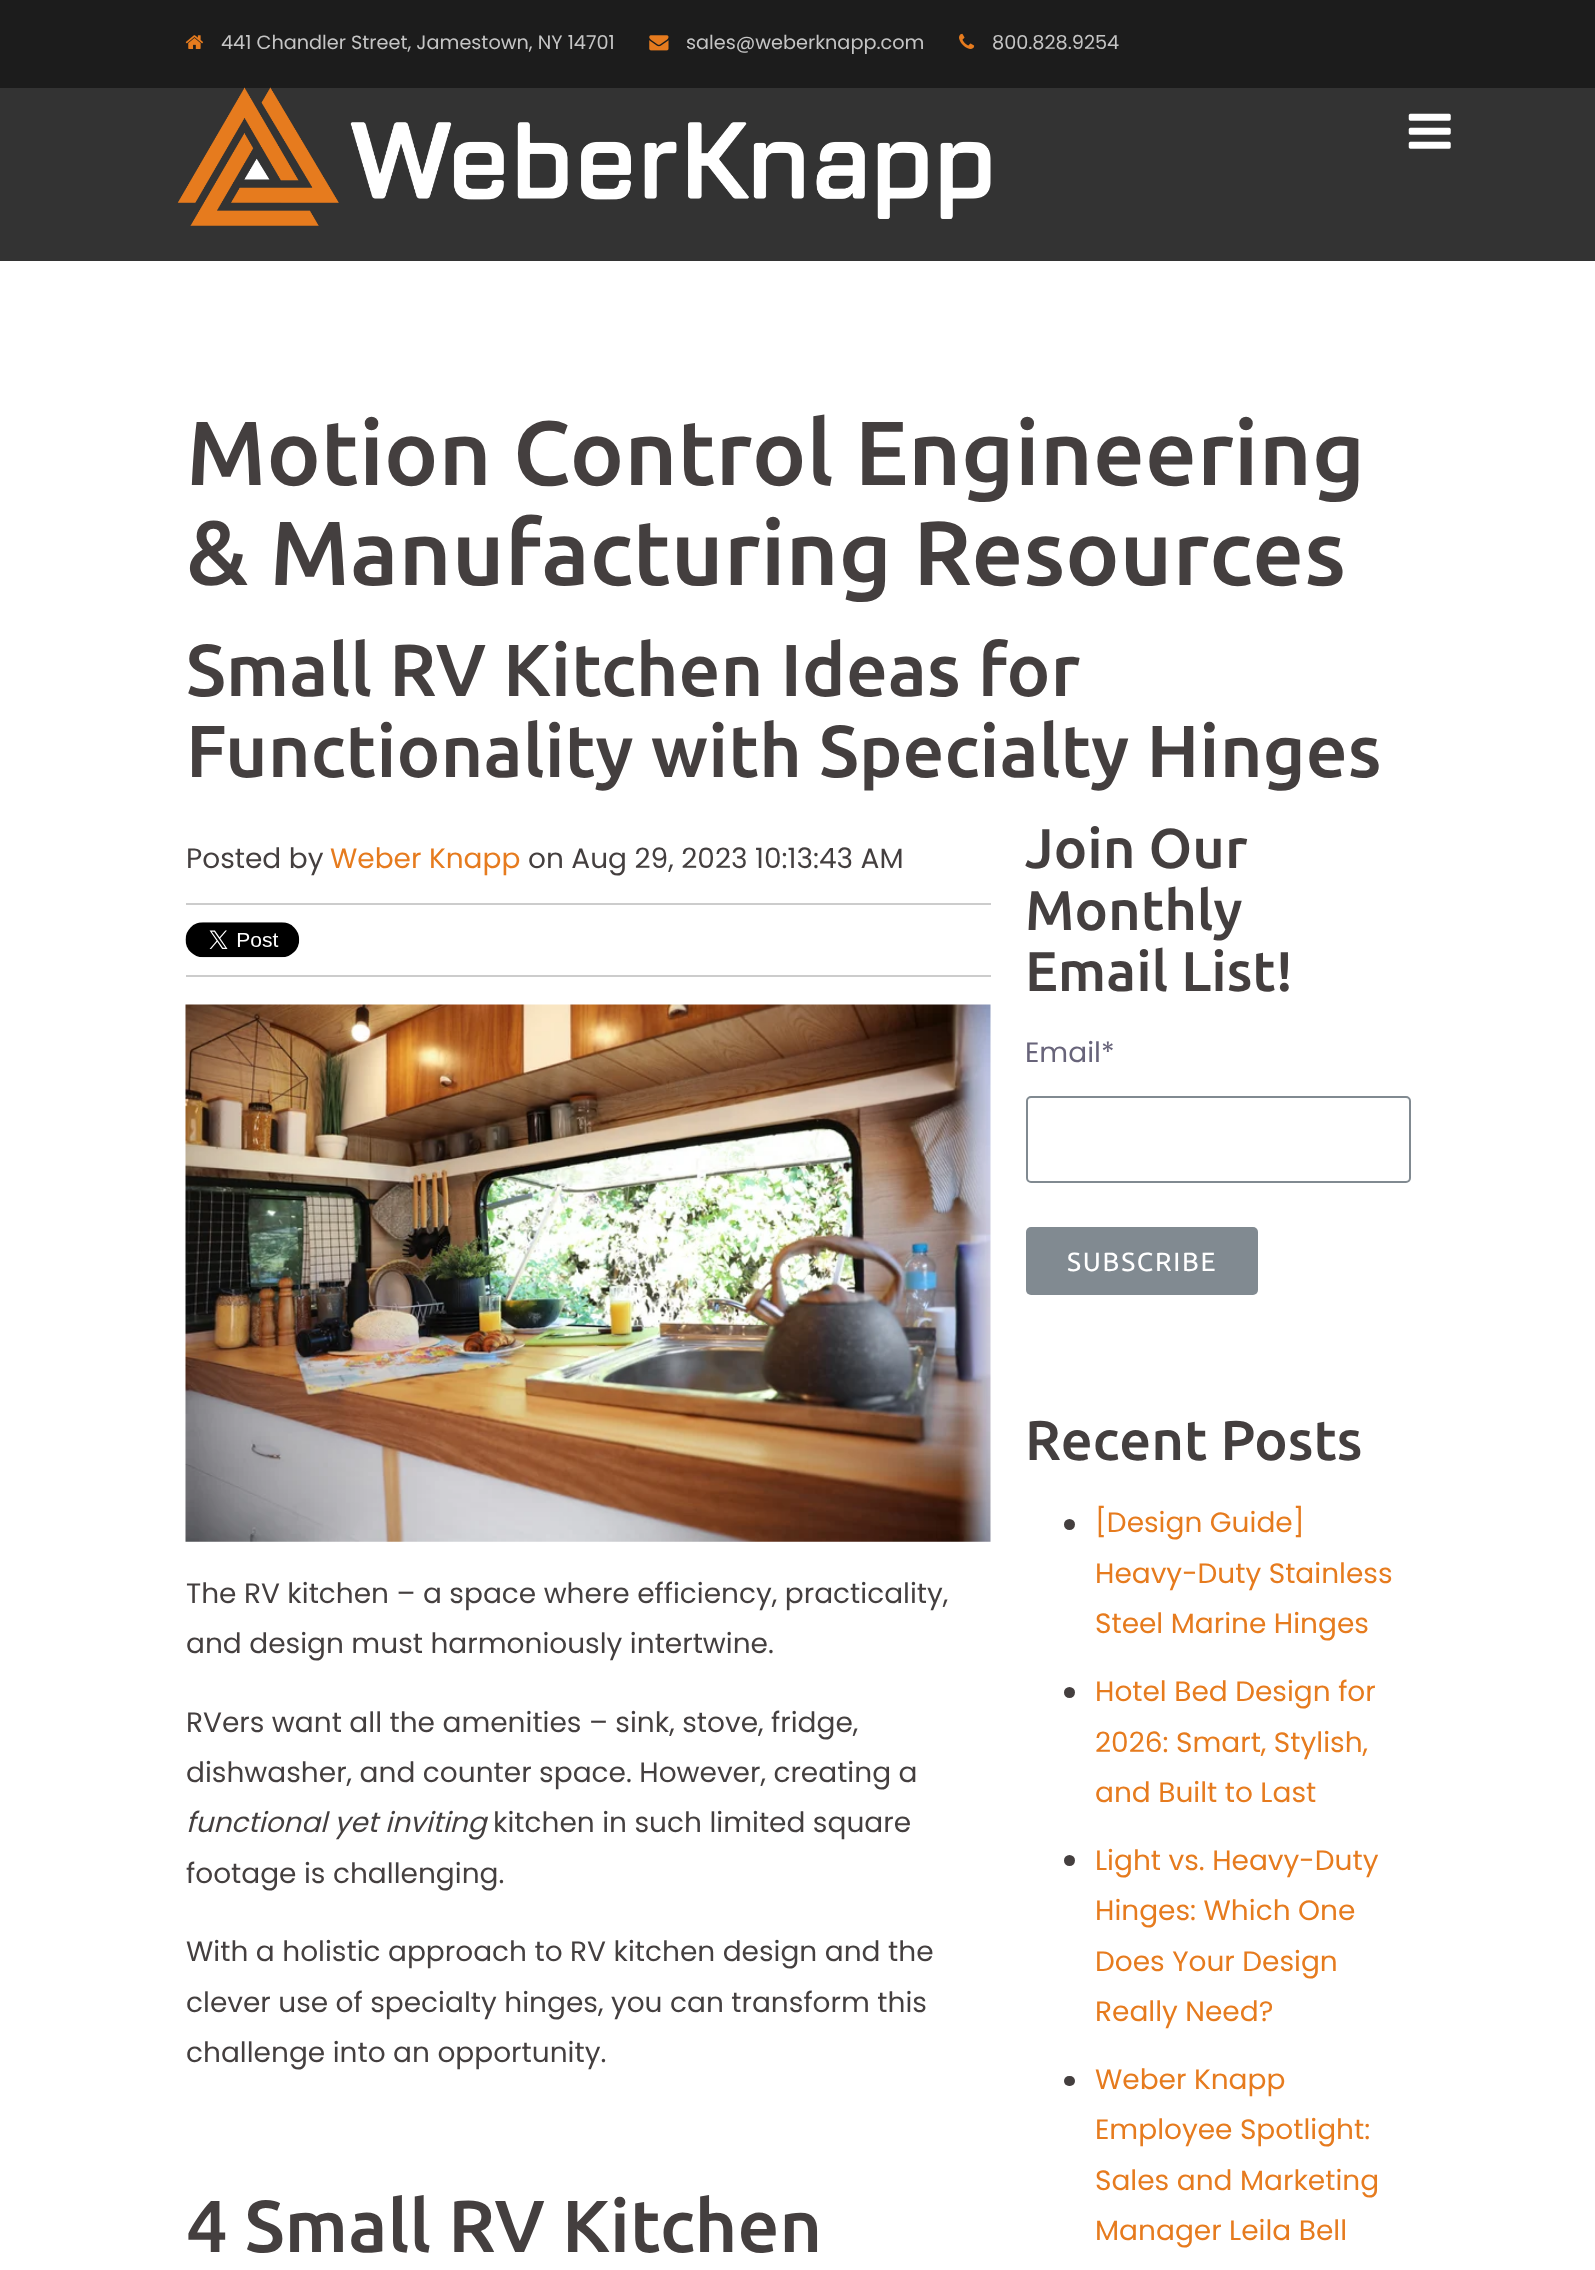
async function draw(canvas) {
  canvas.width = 1595;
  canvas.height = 2270;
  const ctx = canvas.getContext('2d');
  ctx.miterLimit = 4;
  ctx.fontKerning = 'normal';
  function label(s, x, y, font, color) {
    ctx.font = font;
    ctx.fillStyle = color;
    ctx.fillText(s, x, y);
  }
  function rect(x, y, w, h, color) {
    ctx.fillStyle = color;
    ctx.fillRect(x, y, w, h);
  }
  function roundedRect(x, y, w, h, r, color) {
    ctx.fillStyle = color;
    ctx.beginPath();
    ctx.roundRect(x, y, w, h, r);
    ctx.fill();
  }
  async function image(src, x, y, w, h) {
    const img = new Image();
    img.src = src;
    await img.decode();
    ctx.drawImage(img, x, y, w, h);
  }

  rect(0, 0, 1595, 2270, '#fff');
  rect(0, 0, 1595, 88, '#1c1c1c');
  await image('assets/img1.png', 185, 35, 19, 14);
  label('441 Chandler Street, Jamestown, NY 14701', 221, 49, '19.25px Poppins', '#c5c5c5');
  await image('assets/img2.png', 649, 35, 20, 16);
  label('sales@weberknapp.com', 686, 49, '19.25px Poppins', '#c5c5c5');
  await image('assets/img3.png', 959, 33, 16, 16);
  label('800.828.9254', 992, 49, '19.25px Poppins', '#c5c5c5');
  rect(0, 88, 1595, 173, '#333');
  await image('assets/img4.png', 177, 87, 814, 139);
  await image('assets/img5.png', 1408, 113, 43, 36);
  label('Motion Control Engineering', 186, 485, '500 91px Ubuntu', '#443f3f');
  label('& Manufacturing Resources', 186, 585, '500 91px Ubuntu', '#443f3f');
  label('Small RV Kitchen Ideas for', 186, 696, '500 73.5px Ubuntu', '#443f3f');
  label('Functionality with Specialty Hinges', 186, 777, '500 73.5px Ubuntu', '#443f3f');
  label('Posted by', 186, 868, '28px Poppins', '#443f3f');
  label('Weber Knapp', 330, 868, '28px Poppins', '#e67b1e');
  label('on Aug 29, 2023 10:13:43 AM', 528, 868, '28px Poppins', '#443f3f');
  rect(186, 903, 805, 2, '#ccc');
  rect(186, 975, 805, 2, '#ccc');
  await image('assets/img6.png', 185, 922, 115, 36);
  await image('assets/img7.png', 185, 1004, 806, 538);
  label('The RV kitchen – a space where efficiency, practicality,', 186, 1603, '28px Poppins', '#443f3f');
  label('and design must harmoniously intertwine.', 186, 1653, '28px Poppins', '#443f3f');
  label('RVers want all the amenities – sink, stove, fridge,', 186, 1732, '28px Poppins', '#443f3f');
  label('dishwasher, and counter space. However, creating a', 186, 1782, '28px Poppins', '#443f3f');
  label('functional yet inviting', 186, 1832, 'italic 28px Poppins', '#443f3f');
  label('kitchen in such limited square', 493, 1832, '28px Poppins', '#443f3f');
  label('footage is challenging.', 186, 1883, '28px Poppins', '#443f3f');
  label('With a holistic approach to RV kitchen design and the', 186, 1961, '28px Poppins', '#443f3f');
  label('clever use of specialty hinges, you can transform this', 186, 2012, '28px Poppins', '#443f3f');
  label('challenge into an opportunity.', 186, 2062, '28px Poppins', '#443f3f');
  label('4 Small RV Kitchen', 186, 2252, '500 73.5px Ubuntu', '#443f3f');
  label('Join Our', 1025, 868, '500 56px Ubuntu', '#443f3f');
  label('Monthly', 1025, 930, '500 56px Ubuntu', '#443f3f');
  label('Email List!', 1025, 991, '500 56px Ubuntu', '#443f3f');
  label('Email*', 1025, 1062, '28px Poppins', '#68647a');
  ctx.beginPath();
  ctx.roundRect(1027, 1097, 383, 85, 4);
  ctx.strokeStyle = '#818a91';
  ctx.lineWidth = 2;
  ctx.stroke();
  roundedRect(1026, 1227, 232, 68, 5, '#818a91');
  ctx.letterSpacing = '1.75px';
  label('SUBSCRIBE', 1067, 1271, '26.25px Ubuntu', '#fff');
  ctx.letterSpacing = '0px';
  label('Recent Posts', 1025, 1460, '500 56px Ubuntu', '#443f3f');
  ctx.beginPath();
  ctx.arc(1069.5, 1524.5, 5.5, 0, 2 * Math.PI);
  ctx.fill();
  label('[Design Guide]', 1095, 1532, '28px Poppins', '#e67b1e');
  label('Heavy-Duty Stainless', 1095, 1583, '28px Poppins', '#e67b1e');
  label('Steel Marine Hinges', 1095, 1633, '28px Poppins', '#e67b1e');
  ctx.fillStyle = '#443f3f';
  ctx.beginPath();
  ctx.arc(1069.5, 1692.5, 5.5, 0, 2 * Math.PI);
  ctx.fill();
  label('Hotel Bed Design for', 1095, 1701, '28px Poppins', '#e67b1e');
  label('2026: Smart, Stylish,', 1095, 1752, '28px Poppins', '#e67b1e');
  label('and Built to Last', 1095, 1802, '28px Poppins', '#e67b1e');
  ctx.fillStyle = '#443f3f';
  ctx.beginPath();
  ctx.arc(1069.5, 1860.5, 5.5, 0, 2 * Math.PI);
  ctx.fill();
  label('Light vs. Heavy-Duty', 1095, 1870, '28px Poppins', '#e67b1e');
  label('Hinges: Which One', 1095, 1920, '28px Poppins', '#e67b1e');
  label('Does Your Design', 1095, 1971, '28px Poppins', '#e67b1e');
  label('Really Need?', 1095, 2021, '28px Poppins', '#e67b1e');
  roundedRect(1064, 2076, 11, 10, 5, '#443f3f');
  label('Weber Knapp', 1095, 2089, '28px Poppins', '#e67b1e');
  label('Employee Spotlight:', 1095, 2139, '28px Poppins', '#e67b1e');
  label('Sales and Marketing', 1095, 2190, '28px Poppins', '#e67b1e');
  label('Manager Leila Bell', 1095, 2240, '28px Poppins', '#e67b1e');
}

draw(document.querySelector('canvas'));
